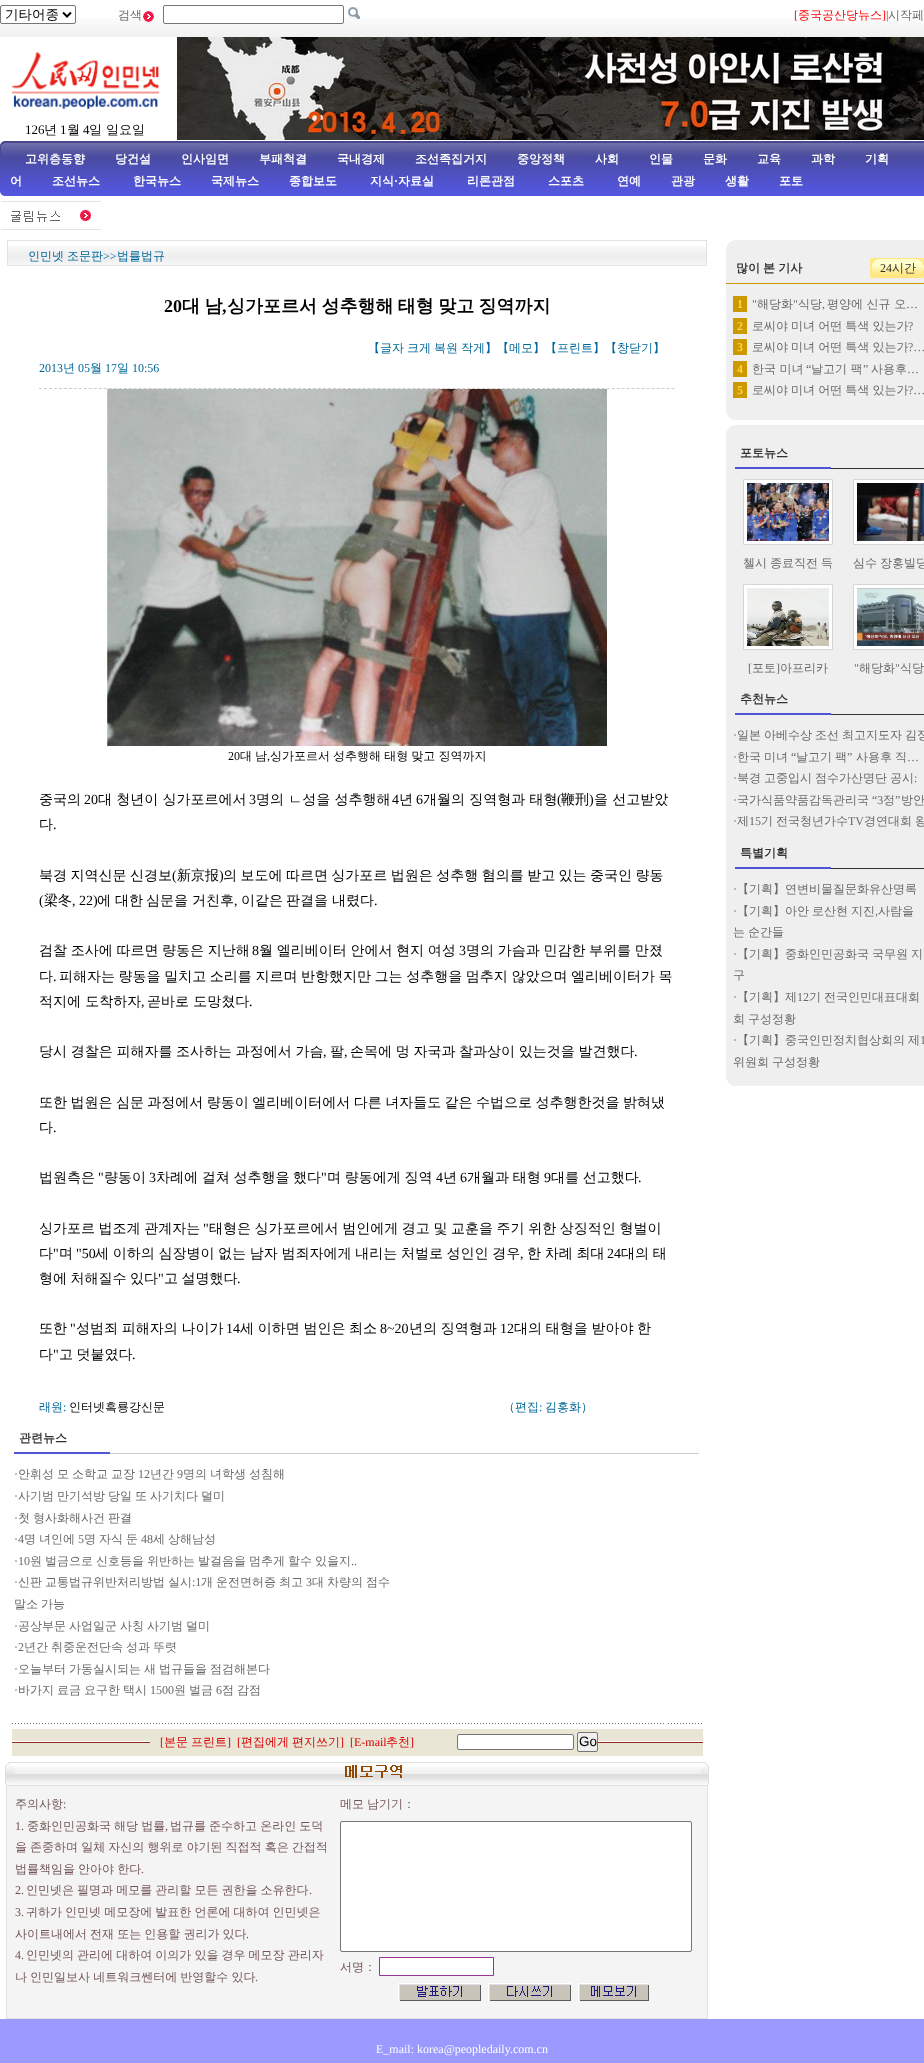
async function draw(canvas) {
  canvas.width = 924;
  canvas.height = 2063;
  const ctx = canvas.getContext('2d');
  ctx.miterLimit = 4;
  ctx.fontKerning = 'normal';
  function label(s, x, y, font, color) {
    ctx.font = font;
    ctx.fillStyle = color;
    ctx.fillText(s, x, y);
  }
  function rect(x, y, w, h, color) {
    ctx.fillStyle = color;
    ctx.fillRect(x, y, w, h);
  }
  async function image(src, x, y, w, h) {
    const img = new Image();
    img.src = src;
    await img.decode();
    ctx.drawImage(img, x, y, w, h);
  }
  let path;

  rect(0, 0, 924, 2063, '#fff');
  await image('assets/img1.png', 0, 18, 924, 19);
  ctx.beginPath();
  ctx.roundRect(0.5, 5.5, 75, 18, 1.5);
  ctx.fill();
  ctx.strokeStyle = '#767676';
  ctx.stroke();
  path = new Path2D('M63 12.5L67 16.5L71 12.5');
  ctx.strokeStyle = '#000';
  ctx.lineWidth = 2;
  ctx.stroke(path);
  label('기타어종', 5, 19, '500 13.5px WenQuanYi Zen Hei', '#000');
  label('검색', 118, 19, '500 12px WenQuanYi Zen Hei', '#686868');
  await image('assets/img2.png', 142, 11, 13, 11);
  ctx.fillStyle = '#fff';
  ctx.beginPath();
  ctx.roundRect(163.5, 5.5, 180, 18, 1.5);
  ctx.fill();
  ctx.strokeStyle = '#767676';
  ctx.lineWidth = 1;
  ctx.stroke();
  await image('assets/img3.png', 347, 7, 13, 12);
  label('[', 794, 19, '12px Liberation Serif', '#f00');
  label('중국공산당뉴스', 798, 19, '500 12px WenQuanYi Zen Hei', '#f00');
  label(']|', 882, 19, '12px Liberation Serif', '#f00');
  ctx.wordSpacing = '-0.5px';
  label('시작페', 888, 19, '500 12px WenQuanYi Zen Hei', '#686868');
  await image('assets/img4.png', 12, 52, 148, 57);
  ctx.wordSpacing = '0px';
  label('126', 25, 134, '13px Liberation Serif', '#000');
  label('년', 44, 134, '500 13px WenQuanYi Zen Hei', '#000');
  label('1', 60, 134, '13px Liberation Serif', '#000');
  label('월', 67, 134, '500 13px WenQuanYi Zen Hei', '#000');
  label('4', 83, 134, '13px Liberation Serif', '#000');
  label('일 일요일', 89, 134, '500 13px WenQuanYi Zen Hei', '#000');
  await image('assets/img5.png', 177, 37, 747, 103);
  await image('assets/img6.png', 0, 141, 924, 55);
  label('고위층동향', 25, 163, 'bold 12px WenQuanYi Zen Hei', '#fff');
  label('당건설', 115, 163, 'bold 12px WenQuanYi Zen Hei', '#fff');
  label('인사임면', 181, 163, 'bold 12px WenQuanYi Zen Hei', '#fff');
  label('부패척결', 259, 163, 'bold 12px WenQuanYi Zen Hei', '#fff');
  label('국내경제', 337, 163, 'bold 12px WenQuanYi Zen Hei', '#fff');
  label('조선족집거지', 415, 163, 'bold 12px WenQuanYi Zen Hei', '#fff');
  label('중앙정책', 517, 163, 'bold 12px WenQuanYi Zen Hei', '#fff');
  label('사회', 595, 163, 'bold 12px WenQuanYi Zen Hei', '#fff');
  label('인물', 649, 163, 'bold 12px WenQuanYi Zen Hei', '#fff');
  label('문화', 703, 163, 'bold 12px WenQuanYi Zen Hei', '#fff');
  label('교육', 757, 163, 'bold 12px WenQuanYi Zen Hei', '#fff');
  label('과학', 811, 163, 'bold 12px WenQuanYi Zen Hei', '#fff');
  label('기획', 865, 163, 'bold 12px WenQuanYi Zen Hei', '#fff');
  label('어', 10, 185, 'bold 12px WenQuanYi Zen Hei', '#fff');
  label('조선뉴스', 52, 185, 'bold 12px WenQuanYi Zen Hei', '#fff');
  label('한국뉴스', 133, 185, 'bold 12px WenQuanYi Zen Hei', '#fff');
  label('국제뉴스', 211, 185, 'bold 12px WenQuanYi Zen Hei', '#fff');
  label('종합보도', 289, 185, 'bold 12px WenQuanYi Zen Hei', '#fff');
  label('지식', 370, 185, 'bold 12px WenQuanYi Zen Hei', '#fff');
  label('·', 394, 185, 'bold 12px Liberation Serif', '#fff');
  label('자료실', 398, 185, 'bold 12px WenQuanYi Zen Hei', '#fff');
  label('리론관점', 467, 185, 'bold 12px WenQuanYi Zen Hei', '#fff');
  label('스포츠', 548, 185, 'bold 12px WenQuanYi Zen Hei', '#fff');
  label('연예', 617, 185, 'bold 12px WenQuanYi Zen Hei', '#fff');
  label('관광', 671, 185, 'bold 12px WenQuanYi Zen Hei', '#fff');
  label('생활', 725, 185, 'bold 12px WenQuanYi Zen Hei', '#fff');
  label('포토', 779, 185, 'bold 12px WenQuanYi Zen Hei', '#fff');
  await image('assets/img7.png', 1, 201, 100, 29);
  await image('assets/img8.png', 8, 246, 698, 19);
  ctx.strokeStyle = '#e3e3e3';
  ctx.strokeRect(7.5, 240.5, 699, 25);
  ctx.wordSpacing = '-0.5px';
  label('인민넷 조문판', 28, 260, '500 12px WenQuanYi Zen Hei', '#069');
  ctx.wordSpacing = '0px';
  label('>>', 103, 260, '12px Liberation Serif', '#069');
  label('법률법규', 117, 260, '500 12px WenQuanYi Zen Hei', '#069');
  label('20', 164, 312, 'bold 18px Liberation Serif', '#000');
  ctx.wordSpacing = '-1px';
  label('대 남', 182, 312, 'bold 18px WenQuanYi Zen Hei', '#000');
  ctx.wordSpacing = '0px';
  label(',', 222, 312, 'bold 18px Liberation Serif', '#000');
  ctx.wordSpacing = '-1px';
  label('싱가포르서 성추행해 태형 맞고 징역까지', 227, 312, 'bold 18px WenQuanYi Zen Hei', '#000');
  path = new Path2D('M39 388.5H675');
  ctx.strokeStyle = '#ccc';
  ctx.setLineDash([3, 1.98]);
  ctx.stroke(path);
  ctx.wordSpacing = '0px';
  label('【글자', 368, 352, '500 12px WenQuanYi Zen Hei', '#069');
  label('크게', 407, 352, '500 12px WenQuanYi Zen Hei', '#069');
  label('복원', 434, 352, '500 12px WenQuanYi Zen Hei', '#069');
  label('작게】【메모】【프린트】【창닫기】', 461, 352, '500 12px WenQuanYi Zen Hei', '#069');
  label('2013', 39, 372, '12px Liberation Serif', '#069');
  label('년', 63, 372, '500 12px WenQuanYi Zen Hei', '#069');
  label('05', 78, 372, '12px Liberation Serif', '#069');
  label('월', 90, 372, '500 12px WenQuanYi Zen Hei', '#069');
  label('17', 105, 372, '12px Liberation Serif', '#069');
  label('일', 117, 372, '500 12px WenQuanYi Zen Hei', '#069');
  label('10:56', 132, 372, '12px Liberation Serif', '#069');
  await image('assets/img9.png', 107, 389, 500, 357);
  label('20', 228, 760, '12px Liberation Serif', '#000');
  ctx.wordSpacing = '-0.5px';
  label('대 남', 240, 760, '500 12px WenQuanYi Zen Hei', '#000');
  ctx.wordSpacing = '0px';
  label(',', 267, 760, '12px Liberation Serif', '#000');
  ctx.wordSpacing = '-0.5px';
  label('싱가포르서 성추행해 태형 맞고 징역까지', 270, 760, '500 12px WenQuanYi Zen Hei', '#000');
  ctx.wordSpacing = '0px';
  label('중국의', 39, 804, '500 14px WenQuanYi Zen Hei', '#000');
  label('20', 84, 804, '14px Liberation Serif', '#000');
  label('대 청년이 싱가포르에서', 98, 804, '500 14px WenQuanYi Zen Hei', '#000');
  label('3', 249, 804, '14px Liberation Serif', '#000');
  label('명의 ㄴ성을 성추행해', 256, 804, '500 14px WenQuanYi Zen Hei', '#000');
  label('4', 392, 804, '14px Liberation Serif', '#000');
  label('년', 399, 804, '500 14px WenQuanYi Zen Hei', '#000');
  label('6', 416, 804, '14px Liberation Serif', '#000');
  label('개월의 징역형과 태형', 423, 804, '500 14px WenQuanYi Zen Hei', '#000');
  label('(', 557, 804, '14px Liberation Serif', '#000');
  label('鞭刑', 561, 804, '500 14px WenQuanYi Zen Hei', '#000');
  label(')', 589, 804, '14px Liberation Serif', '#000');
  label('을 선고받았', 594, 804, '500 14px WenQuanYi Zen Hei', '#000');
  label('다', 39, 829, '500 14px WenQuanYi Zen Hei', '#000');
  label('.', 53, 829, '14px Liberation Serif', '#000');
  ctx.wordSpacing = '-0.75px';
  label('북경 지역신문 신경보', 39, 880, '500 14px WenQuanYi Zen Hei', '#000');
  ctx.wordSpacing = '0px';
  label('(', 172, 880, '14px Liberation Serif', '#000');
  label('新京报', 177, 880, '500 14px WenQuanYi Zen Hei', '#000');
  label(')', 219, 880, '14px Liberation Serif', '#000');
  ctx.wordSpacing = '-0.75px';
  label('의 보도에 따르면 싱가포르 법원은 성추행 혐의를 받고 있는 중국인 량동', 223, 880, '500 14px WenQuanYi Zen Hei', '#000');
  ctx.wordSpacing = '0px';
  label('(', 39, 905, '14px Liberation Serif', '#000');
  label('梁冬', 44, 905, '500 14px WenQuanYi Zen Hei', '#000');
  label(', 22)', 72, 905, '14px Liberation Serif', '#000');
  label('에', 97, 905, '500 14px WenQuanYi Zen Hei', '#000');
  label('대한', 115, 905, '500 14px WenQuanYi Zen Hei', '#000');
  label('심문을', 146, 905, '500 14px WenQuanYi Zen Hei', '#000');
  label('거친후', 192, 905, '500 14px WenQuanYi Zen Hei', '#000');
  label(',', 234, 905, '14px Liberation Serif', '#000');
  label('이같은', 241, 905, '500 14px WenQuanYi Zen Hei', '#000');
  label('판결을', 286, 905, '500 14px WenQuanYi Zen Hei', '#000');
  label('내렸다', 332, 905, '500 14px WenQuanYi Zen Hei', '#000');
  label('.', 374, 905, '14px Liberation Serif', '#000');
  ctx.wordSpacing = '-0.5px';
  label('검찰 조사에 따르면 량동은 지난해', 39, 955, '500 14px WenQuanYi Zen Hei', '#000');
  ctx.wordSpacing = '0px';
  label('8', 252, 955, '14px Liberation Serif', '#000');
  ctx.wordSpacing = '-0.5px';
  label('월 엘리베이터 안에서 현지 여성', 259, 955, '500 14px WenQuanYi Zen Hei', '#000');
  ctx.wordSpacing = '0px';
  label('3', 459, 955, '14px Liberation Serif', '#000');
  ctx.wordSpacing = '-0.5px';
  label('명의 가슴과 민감한 부위를 만졌', 466, 955, '500 14px WenQuanYi Zen Hei', '#000');
  ctx.wordSpacing = '0px';
  label('다', 39, 981, '500 14px WenQuanYi Zen Hei', '#000');
  label('.', 53, 981, '14px Liberation Serif', '#000');
  ctx.wordSpacing = '-0.6px';
  label('피해자는 량동을 밀치고 소리를 지르며 반항했지만 그는 성추행을 멈추지 않았으며 엘리베이터가 목', 59, 981, '500 14px WenQuanYi Zen Hei', '#000');
  ctx.wordSpacing = '0px';
  label('적지에 도착하자', 39, 1006, '500 14px WenQuanYi Zen Hei', '#000');
  label(',', 141, 1006, '14px Liberation Serif', '#000');
  label('곧바로 도망쳤다', 147, 1006, '500 14px WenQuanYi Zen Hei', '#000');
  label('.', 249, 1006, '14px Liberation Serif', '#000');
  ctx.wordSpacing = '-0.5px';
  label('당시 경찰은 피해자를 조사하는 과정에서 가슴', 39, 1056, '500 14px WenQuanYi Zen Hei', '#000');
  ctx.wordSpacing = '0px';
  label(',', 323, 1056, '14px Liberation Serif', '#000');
  label('팔', 330, 1056, '500 14px WenQuanYi Zen Hei', '#000');
  label(',', 344, 1056, '14px Liberation Serif', '#000');
  ctx.wordSpacing = '-0.5px';
  label('손목에 멍 자국과 찰과상이 있는것을 발견했다', 350, 1056, '500 14px WenQuanYi Zen Hei', '#000');
  ctx.wordSpacing = '0px';
  label('.', 634, 1056, '14px Liberation Serif', '#000');
  ctx.wordSpacing = '-0.75px';
  label('또한 법원은 심문 과정에서 량동이 엘리베이터에서 다른 녀자들도 같은 수법으로 성추행한것을 밝혀냈', 39, 1107, '500 14px WenQuanYi Zen Hei', '#000');
  ctx.wordSpacing = '0px';
  label('다', 39, 1132, '500 14px WenQuanYi Zen Hei', '#000');
  label('.', 53, 1132, '14px Liberation Serif', '#000');
  label('법원측은', 39, 1182, '500 14px WenQuanYi Zen Hei', '#000');
  label('"', 98, 1182, '14px Liberation Serif', '#000');
  label('량동이', 104, 1182, '500 14px WenQuanYi Zen Hei', '#000');
  label('3', 149, 1182, '14px Liberation Serif', '#000');
  ctx.wordSpacing = '-0.5px';
  label('차례에 걸쳐 성추행을 했다', 156, 1182, '500 14px WenQuanYi Zen Hei', '#000');
  ctx.wordSpacing = '0px';
  label('"', 321, 1182, '14px Liberation Serif', '#000');
  ctx.wordSpacing = '-0.5px';
  label('며 량동에게 징역', 327, 1182, '500 14px WenQuanYi Zen Hei', '#000');
  ctx.wordSpacing = '0px';
  label('4', 436, 1182, '14px Liberation Serif', '#000');
  label('년', 443, 1182, '500 14px WenQuanYi Zen Hei', '#000');
  label('6', 460, 1182, '14px Liberation Serif', '#000');
  ctx.wordSpacing = '-0.5px';
  label('개월과 태형', 467, 1182, '500 14px WenQuanYi Zen Hei', '#000');
  ctx.wordSpacing = '0px';
  label('9', 544, 1182, '14px Liberation Serif', '#000');
  ctx.wordSpacing = '-0.5px';
  label('대를 선고했다', 551, 1182, '500 14px WenQuanYi Zen Hei', '#000');
  ctx.wordSpacing = '0px';
  label('.', 638, 1182, '14px Liberation Serif', '#000');
  ctx.wordSpacing = '-0.6px';
  label('싱가포르 법조계 관계자는', 39, 1233, '500 14px WenQuanYi Zen Hei', '#000');
  ctx.wordSpacing = '0px';
  label('"', 203, 1233, '14px Liberation Serif', '#000');
  ctx.wordSpacing = '-0.6px';
  label('태형은 싱가포르에서 범인에게 경고 및 교훈을 주기 위한 상징적인 형벌이', 209, 1233, '500 14px WenQuanYi Zen Hei', '#000');
  ctx.wordSpacing = '0px';
  label('다', 39, 1258, '500 14px WenQuanYi Zen Hei', '#000');
  label('"', 53, 1258, '14px Liberation Serif', '#000');
  label('며', 59, 1258, '500 14px WenQuanYi Zen Hei', '#000');
  label('"50', 76, 1258, '14px Liberation Serif', '#000');
  ctx.wordSpacing = '-0.5px';
  label('세 이하의 심장병이 없는 남자 범죄자에게 내리는 처벌로 성인인 경우', 95, 1258, '500 14px WenQuanYi Zen Hei', '#000');
  label('한 차례 최대', 527, 1258, '500 14px WenQuanYi Zen Hei', '#000');
  ctx.wordSpacing = '0px';
  label('24', 607, 1258, '14px Liberation Serif', '#000');
  ctx.wordSpacing = '-0.5px';
  label('대의 태', 621, 1258, '500 14px WenQuanYi Zen Hei', '#000');
  ctx.wordSpacing = '0px';
  label(',', 520, 1258, '14px Liberation Serif', '#000');
  ctx.wordSpacing = '-0.75px';
  label('형에 처해질수 있다', 39, 1283, '500 14px WenQuanYi Zen Hei', '#000');
  ctx.wordSpacing = '0px';
  label('"', 158, 1283, '14px Liberation Serif', '#000');
  ctx.wordSpacing = '-0.75px';
  label('고 설명했다', 164, 1283, '500 14px WenQuanYi Zen Hei', '#000');
  ctx.wordSpacing = '0px';
  label('.', 237, 1283, '14px Liberation Serif', '#000');
  label('또한', 39, 1333, '500 14px WenQuanYi Zen Hei', '#000');
  label('"', 70, 1333, '14px Liberation Serif', '#000');
  ctx.wordSpacing = '-0.5px';
  label('성범죄 피해자의 나이가', 76, 1333, '500 14px WenQuanYi Zen Hei', '#000');
  ctx.wordSpacing = '0px';
  label('14', 226, 1333, '14px Liberation Serif', '#000');
  ctx.wordSpacing = '-0.5px';
  label('세 이하면 범인은 최소', 240, 1333, '500 14px WenQuanYi Zen Hei', '#000');
  ctx.wordSpacing = '0px';
  label('8~20', 380, 1333, '14px Liberation Serif', '#000');
  ctx.wordSpacing = '-0.5px';
  label('년의 징역형과', 409, 1333, '500 14px WenQuanYi Zen Hei', '#000');
  ctx.wordSpacing = '0px';
  label('12', 500, 1333, '14px Liberation Serif', '#000');
  ctx.wordSpacing = '-0.5px';
  label('대의 태형을 받아야 한', 514, 1333, '500 14px WenQuanYi Zen Hei', '#000');
  ctx.wordSpacing = '0px';
  label('다', 39, 1359, '500 14px WenQuanYi Zen Hei', '#000');
  label('"', 53, 1359, '14px Liberation Serif', '#000');
  ctx.wordSpacing = '-0.75px';
  label('고 덧붙였다', 59, 1359, '500 14px WenQuanYi Zen Hei', '#000');
  ctx.wordSpacing = '0px';
  label('.', 132, 1359, '14px Liberation Serif', '#000');
  label('래원', 39, 1411, '500 12px WenQuanYi Zen Hei', '#069');
  label(':', 63, 1411, '12px Liberation Serif', '#069');
  label('인터넷흑룡강신문', 69, 1411, '500 12px WenQuanYi Zen Hei', '#000');
  label('（편집', 503, 1411, '500 12px WenQuanYi Zen Hei', '#069');
  label(':', 539, 1411, '12px Liberation Serif', '#069');
  label('김홍화）', 545, 1411, '500 12px WenQuanYi Zen Hei', '#069');
  await image('assets/img10.png', 14, 1452, 685, 2);
  label('관련뉴스', 19, 1442, 'bold 12px WenQuanYi Zen Hei', '#333');
  label('·', 14, 1478, '12px Liberation Serif', '#686868');
  label('안휘성', 18, 1478, '500 12px WenQuanYi Zen Hei', '#686868');
  label('모', 57, 1478, '500 12px WenQuanYi Zen Hei', '#686868');
  label('소학교', 72, 1478, '500 12px WenQuanYi Zen Hei', '#686868');
  label('교장', 111, 1478, '500 12px WenQuanYi Zen Hei', '#686868');
  label('12', 138, 1478, '12px Liberation Serif', '#686868');
  label('년간', 150, 1478, '500 12px WenQuanYi Zen Hei', '#686868');
  label('9', 177, 1478, '12px Liberation Serif', '#686868');
  label('명의', 183, 1478, '500 12px WenQuanYi Zen Hei', '#686868');
  label('녀학생', 210, 1478, '500 12px WenQuanYi Zen Hei', '#686868');
  label('성침해', 249, 1478, '500 12px WenQuanYi Zen Hei', '#686868');
  label('·', 14, 1500, '12px Liberation Serif', '#686868');
  label('사기범', 18, 1500, '500 12px WenQuanYi Zen Hei', '#686868');
  label('만기석방', 57, 1500, '500 12px WenQuanYi Zen Hei', '#686868');
  label('당일', 108, 1500, '500 12px WenQuanYi Zen Hei', '#686868');
  label('또', 135, 1500, '500 12px WenQuanYi Zen Hei', '#686868');
  label('사기치다', 150, 1500, '500 12px WenQuanYi Zen Hei', '#686868');
  label('덜미', 201, 1500, '500 12px WenQuanYi Zen Hei', '#686868');
  label('·', 14, 1522, '12px Liberation Serif', '#686868');
  label('첫', 18, 1522, '500 12px WenQuanYi Zen Hei', '#686868');
  label('형사화해사건', 33, 1522, '500 12px WenQuanYi Zen Hei', '#686868');
  label('판결', 108, 1522, '500 12px WenQuanYi Zen Hei', '#686868');
  label('·4', 14, 1543, '12px Liberation Serif', '#686868');
  label('명', 24, 1543, '500 12px WenQuanYi Zen Hei', '#686868');
  label('녀인에', 39, 1543, '500 12px WenQuanYi Zen Hei', '#686868');
  label('5', 78, 1543, '12px Liberation Serif', '#686868');
  label('명', 84, 1543, '500 12px WenQuanYi Zen Hei', '#686868');
  label('자식', 99, 1543, '500 12px WenQuanYi Zen Hei', '#686868');
  label('둔', 126, 1543, '500 12px WenQuanYi Zen Hei', '#686868');
  label('48', 141, 1543, '12px Liberation Serif', '#686868');
  label('세', 153, 1543, '500 12px WenQuanYi Zen Hei', '#686868');
  label('상해남성', 168, 1543, '500 12px WenQuanYi Zen Hei', '#686868');
  label('·10', 14, 1565, '12px Liberation Serif', '#686868');
  label('원', 30, 1565, '500 12px WenQuanYi Zen Hei', '#686868');
  label('벌금으로', 45, 1565, '500 12px WenQuanYi Zen Hei', '#686868');
  label('신호등을', 96, 1565, '500 12px WenQuanYi Zen Hei', '#686868');
  label('위반하는', 147, 1565, '500 12px WenQuanYi Zen Hei', '#686868');
  label('발걸음을', 198, 1565, '500 12px WenQuanYi Zen Hei', '#686868');
  label('멈추게', 249, 1565, '500 12px WenQuanYi Zen Hei', '#686868');
  label('할수', 288, 1565, '500 12px WenQuanYi Zen Hei', '#686868');
  label('있을지', 315, 1565, '500 12px WenQuanYi Zen Hei', '#686868');
  label('..', 351, 1565, '12px Liberation Serif', '#686868');
  label('·', 14, 1586, '12px Liberation Serif', '#686868');
  label('신판', 18, 1586, '500 12px WenQuanYi Zen Hei', '#686868');
  label('교통법규위반처리방법', 45, 1586, '500 12px WenQuanYi Zen Hei', '#686868');
  label('실시', 168, 1586, '500 12px WenQuanYi Zen Hei', '#686868');
  label(':1', 192, 1586, '12px Liberation Serif', '#686868');
  label('개', 201, 1586, '500 12px WenQuanYi Zen Hei', '#686868');
  label('운전면허증', 216, 1586, '500 12px WenQuanYi Zen Hei', '#686868');
  label('최고', 279, 1586, '500 12px WenQuanYi Zen Hei', '#686868');
  label('3', 306, 1586, '12px Liberation Serif', '#686868');
  label('대', 312, 1586, '500 12px WenQuanYi Zen Hei', '#686868');
  label('차량의', 327, 1586, '500 12px WenQuanYi Zen Hei', '#686868');
  label('점수', 366, 1586, '500 12px WenQuanYi Zen Hei', '#686868');
  label('말소', 14, 1608, '500 12px WenQuanYi Zen Hei', '#686868');
  label('가능', 41, 1608, '500 12px WenQuanYi Zen Hei', '#686868');
  label('·', 14, 1630, '12px Liberation Serif', '#686868');
  label('공상부문', 18, 1630, '500 12px WenQuanYi Zen Hei', '#686868');
  label('사업일군', 69, 1630, '500 12px WenQuanYi Zen Hei', '#686868');
  label('사칭', 120, 1630, '500 12px WenQuanYi Zen Hei', '#686868');
  label('사기범', 147, 1630, '500 12px WenQuanYi Zen Hei', '#686868');
  label('덜미', 186, 1630, '500 12px WenQuanYi Zen Hei', '#686868');
  label('·2', 14, 1651, '12px Liberation Serif', '#686868');
  label('년간', 24, 1651, '500 12px WenQuanYi Zen Hei', '#686868');
  label('취중운전단속', 51, 1651, '500 12px WenQuanYi Zen Hei', '#686868');
  label('성과', 126, 1651, '500 12px WenQuanYi Zen Hei', '#686868');
  label('뚜렷', 153, 1651, '500 12px WenQuanYi Zen Hei', '#686868');
  label('·', 14, 1673, '12px Liberation Serif', '#686868');
  label('오늘부터', 18, 1673, '500 12px WenQuanYi Zen Hei', '#686868');
  label('가동실시되는', 69, 1673, '500 12px WenQuanYi Zen Hei', '#686868');
  label('새', 144, 1673, '500 12px WenQuanYi Zen Hei', '#686868');
  label('법규들을', 159, 1673, '500 12px WenQuanYi Zen Hei', '#686868');
  label('점검해본다', 210, 1673, '500 12px WenQuanYi Zen Hei', '#686868');
  label('·', 14, 1694, '12px Liberation Serif', '#686868');
  label('바가지', 18, 1694, '500 12px WenQuanYi Zen Hei', '#686868');
  label('료금', 57, 1694, '500 12px WenQuanYi Zen Hei', '#686868');
  label('요구한', 84, 1694, '500 12px WenQuanYi Zen Hei', '#686868');
  label('택시', 123, 1694, '500 12px WenQuanYi Zen Hei', '#686868');
  label('1500', 150, 1694, '12px Liberation Serif', '#686868');
  label('원', 174, 1694, '500 12px WenQuanYi Zen Hei', '#686868');
  label('벌금', 189, 1694, '500 12px WenQuanYi Zen Hei', '#686868');
  label('6', 216, 1694, '12px Liberation Serif', '#686868');
  label('점', 222, 1694, '500 12px WenQuanYi Zen Hei', '#686868');
  label('감점', 237, 1694, '500 12px WenQuanYi Zen Hei', '#686868');
  await image('assets/img11.png', 12, 1723, 691, 33);
  label('[', 160, 1746, '12px Liberation Serif', '#d40003');
  ctx.wordSpacing = '-0.5px';
  label('본문 프린트', 164, 1746, '500 12px WenQuanYi Zen Hei', '#d40003');
  ctx.wordSpacing = '0px';
  label(']  [', 227, 1746, '12px Liberation Serif', '#d40003');
  ctx.wordSpacing = '-0.5px';
  label('편집에게 편지쓰기', 241, 1746, '500 12px WenQuanYi Zen Hei', '#d40003');
  ctx.wordSpacing = '0px';
  label(']  [E-mail', 340, 1746, '12px Liberation Serif', '#d40003');
  label('추천', 386, 1746, '500 12px WenQuanYi Zen Hei', '#d40003');
  label(']', 410, 1746, '12px Liberation Serif', '#d40003');
  ctx.fillStyle = '#fff';
  ctx.beginPath();
  ctx.roundRect(457.5, 1734.5, 116, 15, 1.5);
  ctx.fill();
  ctx.strokeStyle = '#767676';
  ctx.setLineDash([]);
  ctx.stroke();
  ctx.fillStyle = '#efefef';
  ctx.beginPath();
  ctx.roundRect(577.5, 1732.5, 20, 19, 1.5);
  ctx.fill();
  ctx.stroke();
  label('Go', 579, 1746, '13.5px Liberation Sans', '#000');
  await image('assets/img12.png', 5, 1762, 704, 23);
  ctx.fillStyle = '#f4f4f4';
  ctx.beginPath();
  ctx.rect(6.5, 1785.5, 701, 233);
  ctx.fill();
  ctx.strokeStyle = '#e0e0e0';
  ctx.stroke();
  label('주의사항', 15, 1808, '500 12px WenQuanYi Zen Hei', '#735555');
  label(':', 63, 1808, '12px Liberation Serif', '#735555');
  label('1.', 15, 1830, '12px Liberation Serif', '#735555');
  ctx.wordSpacing = '-0.5px';
  label('중화인민공화국 해당 법률', 27, 1830, '500 12px WenQuanYi Zen Hei', '#735555');
  ctx.wordSpacing = '0px';
  label(',', 165, 1830, '12px Liberation Serif', '#735555');
  ctx.wordSpacing = '-0.5px';
  label('법규를 준수하고 온라인 도덕', 170, 1830, '500 12px WenQuanYi Zen Hei', '#735555');
  label('을 존중하며 일체 자신의 행위로 야기된 직접적 혹은 간접적', 15, 1851, '500 12px WenQuanYi Zen Hei', '#735555');
  label('법률책임을 안아야 한다', 15, 1873, '500 12px WenQuanYi Zen Hei', '#735555');
  ctx.wordSpacing = '0px';
  label('.', 141, 1873, '12px Liberation Serif', '#735555');
  label('2.', 15, 1894, '12px Liberation Serif', '#735555');
  ctx.wordSpacing = '-0.5px';
  label('인민넷은 필명과 메모를 관리할 모든 권한을 소유한다', 26, 1894, '500 12px WenQuanYi Zen Hei', '#735555');
  ctx.wordSpacing = '0px';
  label('.', 309, 1894, '12px Liberation Serif', '#735555');
  label('3.', 15, 1916, '12px Liberation Serif', '#735555');
  ctx.wordSpacing = '-0.5px';
  label('귀하가 인민넷 메모장에 발표한 언론에 대하여 인민넷은', 26, 1916, '500 12px WenQuanYi Zen Hei', '#735555');
  label('사이트내에서 전재 또는 인용할 권리가 있다', 15, 1938, '500 12px WenQuanYi Zen Hei', '#735555');
  ctx.wordSpacing = '0px';
  label('.', 246, 1938, '12px Liberation Serif', '#735555');
  label('4.', 15, 1959, '12px Liberation Serif', '#735555');
  ctx.wordSpacing = '-0.5px';
  label('인민넷의 관리에 대하여 이의가 있을 경우 메모장 관리자', 26, 1959, '500 12px WenQuanYi Zen Hei', '#735555');
  label('나 인민일보사 네트워크쎈터에 반영할수 있다', 15, 1981, '500 12px WenQuanYi Zen Hei', '#735555');
  ctx.wordSpacing = '0px';
  label('.', 255, 1981, '12px Liberation Serif', '#735555');
  ctx.wordSpacing = '-0.5px';
  label('메모 남기기：', 340, 1808, '500 12px WenQuanYi Zen Hei', '#735555');
  ctx.fillStyle = '#fff';
  ctx.beginPath();
  ctx.roundRect(340.5, 1821.5, 351, 130, 1.5);
  ctx.fill();
  ctx.strokeStyle = '#767676';
  ctx.stroke();
  ctx.wordSpacing = '0px';
  label('서명：', 340, 1971, '500 12px WenQuanYi Zen Hei', '#735555');
  ctx.fillStyle = '#fff';
  ctx.beginPath();
  ctx.rect(379.5, 1957.5, 114, 18);
  ctx.fill();
  ctx.strokeStyle = '#97339a';
  ctx.stroke();
  await image('assets/img13.png', 398, 1983, 83, 18);
  await image('assets/img14.png', 488, 1983, 83, 18);
  await image('assets/img15.png', 578, 1983, 71, 18);
  rect(726, 240, 198, 846, '#efeff0');
  await image('assets/img16.png', 726, 240, 8, 8);
  rect(726, 283, 198, 1, '#c90');
  ctx.wordSpacing = '-0.5px';
  label('많이 본 기사', 736, 272, 'bold 12px WenQuanYi Zen Hei', '#333');
  await image('assets/img17.png', 870, 258, 54, 20);
  ctx.wordSpacing = '0px';
  label('24', 880, 272, '12px Liberation Serif', '#333');
  label('시간', 892, 272, '500 12px WenQuanYi Zen Hei', '#333');
  rect(733, 296, 14, 16, '#c90');
  label('1', 737, 308, 'bold 12px Liberation Serif', '#ffd349');
  label('"', 752, 308, '12px Liberation Serif', '#686868');
  label('해당화', 757, 308, '500 12px WenQuanYi Zen Hei', '#686868');
  label('"', 793, 308, '12px Liberation Serif', '#686868');
  label('식당', 798, 308, '500 12px WenQuanYi Zen Hei', '#686868');
  label('평양에 신규 오', 827, 308, '500 12px WenQuanYi Zen Hei', '#686868');
  label(',', 822, 308, '12px Liberation Serif', '#686868');
  label('…', 906, 308, '12px Liberation Serif', '#686868');
  rect(733, 318, 14, 16, '#c90');
  label('2', 737, 330, 'bold 12px Liberation Serif', '#ffd349');
  ctx.wordSpacing = '-0.5px';
  label('로씨야 미녀 어떤 특색 있는가', 752, 330, '500 12px WenQuanYi Zen Hei', '#686868');
  ctx.wordSpacing = '0px';
  label('?', 908, 330, '12px Liberation Serif', '#686868');
  rect(733, 339, 14, 16, '#c90');
  label('3', 737, 351, 'bold 12px Liberation Serif', '#ffd349');
  ctx.wordSpacing = '-0.5px';
  label('로씨야 미녀 어떤 특색 있는가', 752, 351, '500 12px WenQuanYi Zen Hei', '#686868');
  ctx.wordSpacing = '0px';
  label('?…', 908, 351, '12px Liberation Serif', '#686868');
  rect(733, 361, 14, 16, '#c90');
  label('4', 737, 373, 'bold 12px Liberation Serif', '#ffd349');
  label('한국 미녀', 752, 373, '500 12px WenQuanYi Zen Hei', '#686868');
  label('“', 806, 373, '12px Liberation Serif', '#686868');
  label('날고기 팩', 811, 373, '500 12px WenQuanYi Zen Hei', '#686868');
  label('”', 863, 373, '12px Liberation Serif', '#686868');
  label('사용후', 871, 373, '500 12px WenQuanYi Zen Hei', '#686868');
  label('…', 907, 373, '12px Liberation Serif', '#686868');
  rect(733, 382, 14, 16, '#c90');
  label('5', 737, 394, 'bold 12px Liberation Serif', '#ffd349');
  ctx.wordSpacing = '-0.5px';
  label('로씨야 미녀 어떤 특색 있는가', 752, 394, '500 12px WenQuanYi Zen Hei', '#686868');
  ctx.wordSpacing = '0px';
  label('?…', 908, 394, '12px Liberation Serif', '#686868');
  await image('assets/img18.png', 726, 412, 8, 8);
  rect(726, 420, 198, 5, '#fff');
  await image('assets/img16.png', 726, 425, 8, 8);
  await image('assets/img19.png', 735, 467, 189, 2);
  label('포토뉴스', 740, 457, 'bold 12px WenQuanYi Zen Hei', '#333');
  ctx.fillStyle = '#fff';
  ctx.beginPath();
  ctx.rect(743.5, 479.5, 89, 65);
  ctx.fill();
  ctx.strokeStyle = '#d5d5d5';
  ctx.stroke();
  await image('assets/img20.png', 747, 483, 82, 58);
  label('첼시', 743, 567, '500 12px WenQuanYi Zen Hei', '#686868');
  label('종료직전', 770, 567, '500 12px WenQuanYi Zen Hei', '#686868');
  label('득', 821, 567, '500 12px WenQuanYi Zen Hei', '#686868');
  ctx.fillStyle = '#fff';
  ctx.beginPath();
  ctx.rect(853.5, 479.5, 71, 65);
  ctx.fill();
  ctx.stroke();
  await image('assets/img21.png', 857, 483, 67, 58);
  label('심수', 853, 567, '500 12px WenQuanYi Zen Hei', '#686868');
  label('장홍빌딩', 880, 567, '500 12px WenQuanYi Zen Hei', '#686868');
  ctx.fillStyle = '#fff';
  ctx.beginPath();
  ctx.rect(743.5, 584.5, 89, 65);
  ctx.fill();
  ctx.stroke();
  await image('assets/img22.png', 747, 588, 82, 58);
  label('[', 748, 672, '12px Liberation Serif', '#686868');
  label('포토', 752, 672, '500 12px WenQuanYi Zen Hei', '#686868');
  label(']', 776, 672, '12px Liberation Serif', '#686868');
  label('아프리카', 780, 672, '500 12px WenQuanYi Zen Hei', '#686868');
  ctx.fillStyle = '#fff';
  ctx.beginPath();
  ctx.rect(853.5, 584.5, 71, 65);
  ctx.fill();
  ctx.stroke();
  await image('assets/img23.png', 857, 588, 67, 58);
  label('"', 854, 672, '12px Liberation Serif', '#686868');
  label('해당화', 859, 672, '500 12px WenQuanYi Zen Hei', '#686868');
  label('"', 895, 672, '12px Liberation Serif', '#686868');
  label('식당', 900, 672, '500 12px WenQuanYi Zen Hei', '#686868');
  await image('assets/img19.png', 735, 713, 189, 2);
  label('추천뉴스', 740, 703, 'bold 12px WenQuanYi Zen Hei', '#333');
  label('·', 733, 739, '12px Liberation Serif', '#686868');
  label('일본', 737, 739, '500 12px WenQuanYi Zen Hei', '#686868');
  label('아베수상', 764, 739, '500 12px WenQuanYi Zen Hei', '#686868');
  label('조선', 815, 739, '500 12px WenQuanYi Zen Hei', '#686868');
  label('최고지도자', 842, 739, '500 12px WenQuanYi Zen Hei', '#686868');
  label('김정', 905, 739, '500 12px WenQuanYi Zen Hei', '#686868');
  label('·', 733, 761, '12px Liberation Serif', '#686868');
  label('한국', 737, 761, '500 12px WenQuanYi Zen Hei', '#686868');
  label('미녀', 764, 761, '500 12px WenQuanYi Zen Hei', '#686868');
  label('“', 791, 761, '12px Liberation Serif', '#686868');
  label('날고기', 796, 761, '500 12px WenQuanYi Zen Hei', '#686868');
  label('팩', 835, 761, '500 12px WenQuanYi Zen Hei', '#686868');
  label('”', 847, 761, '12px Liberation Serif', '#686868');
  label('사용후', 856, 761, '500 12px WenQuanYi Zen Hei', '#686868');
  label('직', 895, 761, '500 12px WenQuanYi Zen Hei', '#686868');
  label('…', 907, 761, '12px Liberation Serif', '#686868');
  label('·', 733, 782, '12px Liberation Serif', '#686868');
  label('북경', 737, 782, '500 12px WenQuanYi Zen Hei', '#686868');
  label('고중입시', 764, 782, '500 12px WenQuanYi Zen Hei', '#686868');
  label('점수가산명단', 815, 782, '500 12px WenQuanYi Zen Hei', '#686868');
  label('공시', 890, 782, '500 12px WenQuanYi Zen Hei', '#686868');
  label(':', 914, 782, '12px Liberation Serif', '#686868');
  label('·', 733, 804, '12px Liberation Serif', '#686868');
  label('국가식품약품감독관리국', 737, 804, '500 12px WenQuanYi Zen Hei', '#686868');
  label('“3', 872, 804, '12px Liberation Serif', '#686868');
  label('정', 883, 804, '500 12px WenQuanYi Zen Hei', '#686868');
  label('”', 895, 804, '12px Liberation Serif', '#686868');
  label('방안', 901, 804, '500 12px WenQuanYi Zen Hei', '#686868');
  label('·', 733, 825, '12px Liberation Serif', '#686868');
  label('제', 737, 825, '500 12px WenQuanYi Zen Hei', '#686868');
  label('15', 749, 825, '12px Liberation Serif', '#686868');
  label('기', 761, 825, '500 12px WenQuanYi Zen Hei', '#686868');
  label('전국청년가수', 776, 825, '500 12px WenQuanYi Zen Hei', '#686868');
  label('TV', 848, 825, '12px Liberation Serif', '#686868');
  label('경연대회', 864, 825, '500 12px WenQuanYi Zen Hei', '#686868');
  label('왕', 915, 825, '500 12px WenQuanYi Zen Hei', '#686868');
  await image('assets/img19.png', 735, 867, 189, 2);
  label('특별기획', 740, 857, 'bold 12px WenQuanYi Zen Hei', '#333');
  label('·', 733, 893, '12px Liberation Serif', '#686868');
  label('【기획】연변비물질문화유산명록', 737, 893, '500 12px WenQuanYi Zen Hei', '#686868');
  label('·', 733, 915, '12px Liberation Serif', '#686868');
  label('【기획】아안', 737, 915, '500 12px WenQuanYi Zen Hei', '#686868');
  label('로산현', 812, 915, '500 12px WenQuanYi Zen Hei', '#686868');
  label('지진', 851, 915, '500 12px WenQuanYi Zen Hei', '#686868');
  label('사람을', 878, 915, '500 12px WenQuanYi Zen Hei', '#686868');
  label(',', 875, 915, '12px Liberation Serif', '#686868');
  label('는', 733, 936, '500 12px WenQuanYi Zen Hei', '#686868');
  label('순간들', 748, 936, '500 12px WenQuanYi Zen Hei', '#686868');
  label('·', 733, 958, '12px Liberation Serif', '#686868');
  label('【기획】중화인민공화국', 737, 958, '500 12px WenQuanYi Zen Hei', '#686868');
  label('국무원', 872, 958, '500 12px WenQuanYi Zen Hei', '#686868');
  label('지', 911, 958, '500 12px WenQuanYi Zen Hei', '#686868');
  label('구', 733, 979, '500 12px WenQuanYi Zen Hei', '#686868');
  label('·', 733, 1001, '12px Liberation Serif', '#686868');
  label('【기획】제', 737, 1001, '500 12px WenQuanYi Zen Hei', '#686868');
  label('12', 797, 1001, '12px Liberation Serif', '#686868');
  label('기', 809, 1001, '500 12px WenQuanYi Zen Hei', '#686868');
  label('전국인민대표대회', 824, 1001, '500 12px WenQuanYi Zen Hei', '#686868');
  label('회', 733, 1023, '500 12px WenQuanYi Zen Hei', '#686868');
  label('구성정황', 748, 1023, '500 12px WenQuanYi Zen Hei', '#686868');
  label('·', 733, 1044, '12px Liberation Serif', '#686868');
  label('【기획】중국인민정치협상회의', 737, 1044, '500 12px WenQuanYi Zen Hei', '#686868');
  label('제', 908, 1044, '500 12px WenQuanYi Zen Hei', '#686868');
  label('1', 920, 1044, '12px Liberation Serif', '#686868');
  label('위원회', 733, 1066, '500 12px WenQuanYi Zen Hei', '#686868');
  label('구성정황', 772, 1066, '500 12px WenQuanYi Zen Hei', '#686868');
  await image('assets/img18.png', 726, 1078, 8, 8);
  rect(0, 2019, 924, 44, '#99f');
  label('E_mail: korea@peopledaily.com.cn', 376, 2053, '12px Liberation Serif', '#fff');
}

draw(document.querySelector('canvas'));
